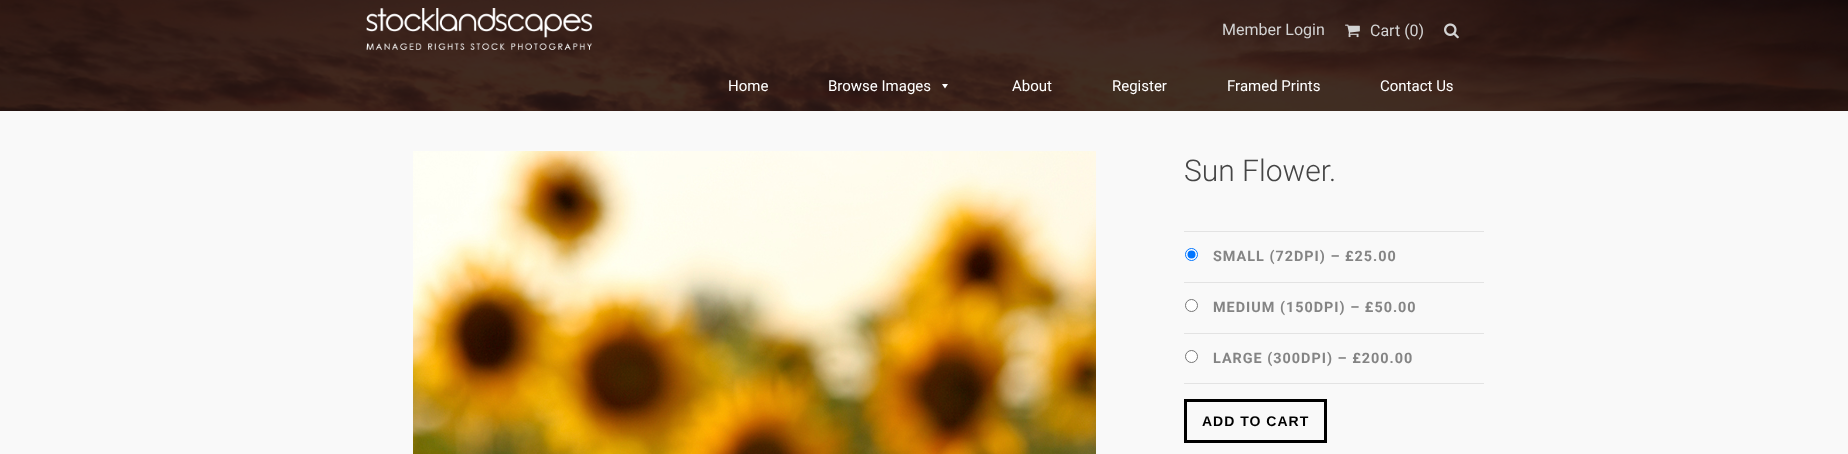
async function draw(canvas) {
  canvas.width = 1848;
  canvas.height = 454;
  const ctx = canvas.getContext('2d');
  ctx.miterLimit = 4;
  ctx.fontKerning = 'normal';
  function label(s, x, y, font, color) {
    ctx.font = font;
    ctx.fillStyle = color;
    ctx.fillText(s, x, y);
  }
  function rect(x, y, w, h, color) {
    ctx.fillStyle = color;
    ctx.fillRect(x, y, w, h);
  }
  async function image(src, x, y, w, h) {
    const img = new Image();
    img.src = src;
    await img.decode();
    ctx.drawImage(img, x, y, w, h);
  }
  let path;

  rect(0, 0, 1848, 454, '#f9f9f9');
  await image('assets/img1.png', 0, 0, 1848, 111);
  rect(0, 0, 1848, 61, '#000000bf');
  await image('assets/img2.png', 366, 8, 227, 42);
  label('Member Login', 1222, 35, '16px Roboto', '#d3d3d3');
  await image('assets/img3.png', 1345, 24, 15, 14);
  label('Cart (0)', 1370, 36, '16px Roboto', '#d3d3d3');
  await image('assets/img4.png', 1444, 23, 15, 16);
  rect(0, 61, 1848, 50, '#000000bf');
  label('Home', 728, 91, '15px Roboto', '#fff');
  label('Browse Images', 828, 91, '15px Roboto', '#fff');
  path = new Path2D('M948 84L945 88.5L942 84Z');
  ctx.fill(path);
  label('About', 1012, 91, '15px Roboto', '#fff');
  label('Register', 1112, 91, '15px Roboto', '#fff');
  label('Framed Prints', 1227, 91, '15px Roboto', '#fff');
  label('Contact Us', 1380, 91, '15px Roboto', '#fff');
  await image('assets/img5.png', 413, 151, 683, 303);
  label('Sun Flower.', 1184, 181, '300 30px Roboto', '#454545');
  rect(1184, 231, 300, 1, '#e3e3e3');
  rect(1184, 282, 300, 1, '#e3e3e3');
  ctx.fillStyle = '#fff';
  ctx.beginPath();
  ctx.arc(1191.5, 254.5, 6, 0, 2 * Math.PI);
  ctx.fill();
  ctx.strokeStyle = '#0075ff';
  ctx.stroke();
  ctx.fillStyle = '#0075ff';
  ctx.beginPath();
  ctx.arc(1191.5, 254.5, 4, 0, 2 * Math.PI);
  ctx.fill();
  ctx.letterSpacing = '1px';
  label('SMALL (72DPI) – £25.00', 1213, 261, 'bold 14.4px Roboto', '#848484');
  rect(1184, 333, 300, 1, '#e3e3e3');
  ctx.fillStyle = '#fff';
  ctx.beginPath();
  ctx.arc(1191.5, 305.5, 6, 0, 2 * Math.PI);
  ctx.fill();
  ctx.strokeStyle = '#767676';
  ctx.stroke();
  label('MEDIUM (150DPI) – £50.00', 1213, 312, 'bold 14.4px Roboto', '#848484');
  rect(1184, 383, 300, 1, '#e3e3e3');
  ctx.fillStyle = '#fff';
  ctx.beginPath();
  ctx.arc(1191.5, 356.5, 6, 0, 2 * Math.PI);
  ctx.fill();
  ctx.stroke();
  label('LARGE (300DPI) – £200.00', 1213, 363, 'bold 14.4px Roboto', '#848484');
  ctx.strokeStyle = '#000';
  ctx.lineWidth = 3;
  ctx.strokeRect(1185.5, 400.5, 140, 41);
  label('ADD TO CART', 1202, 426, 'bold 14px Liberation Sans', '#000');
}

draw(document.querySelector('canvas'));
